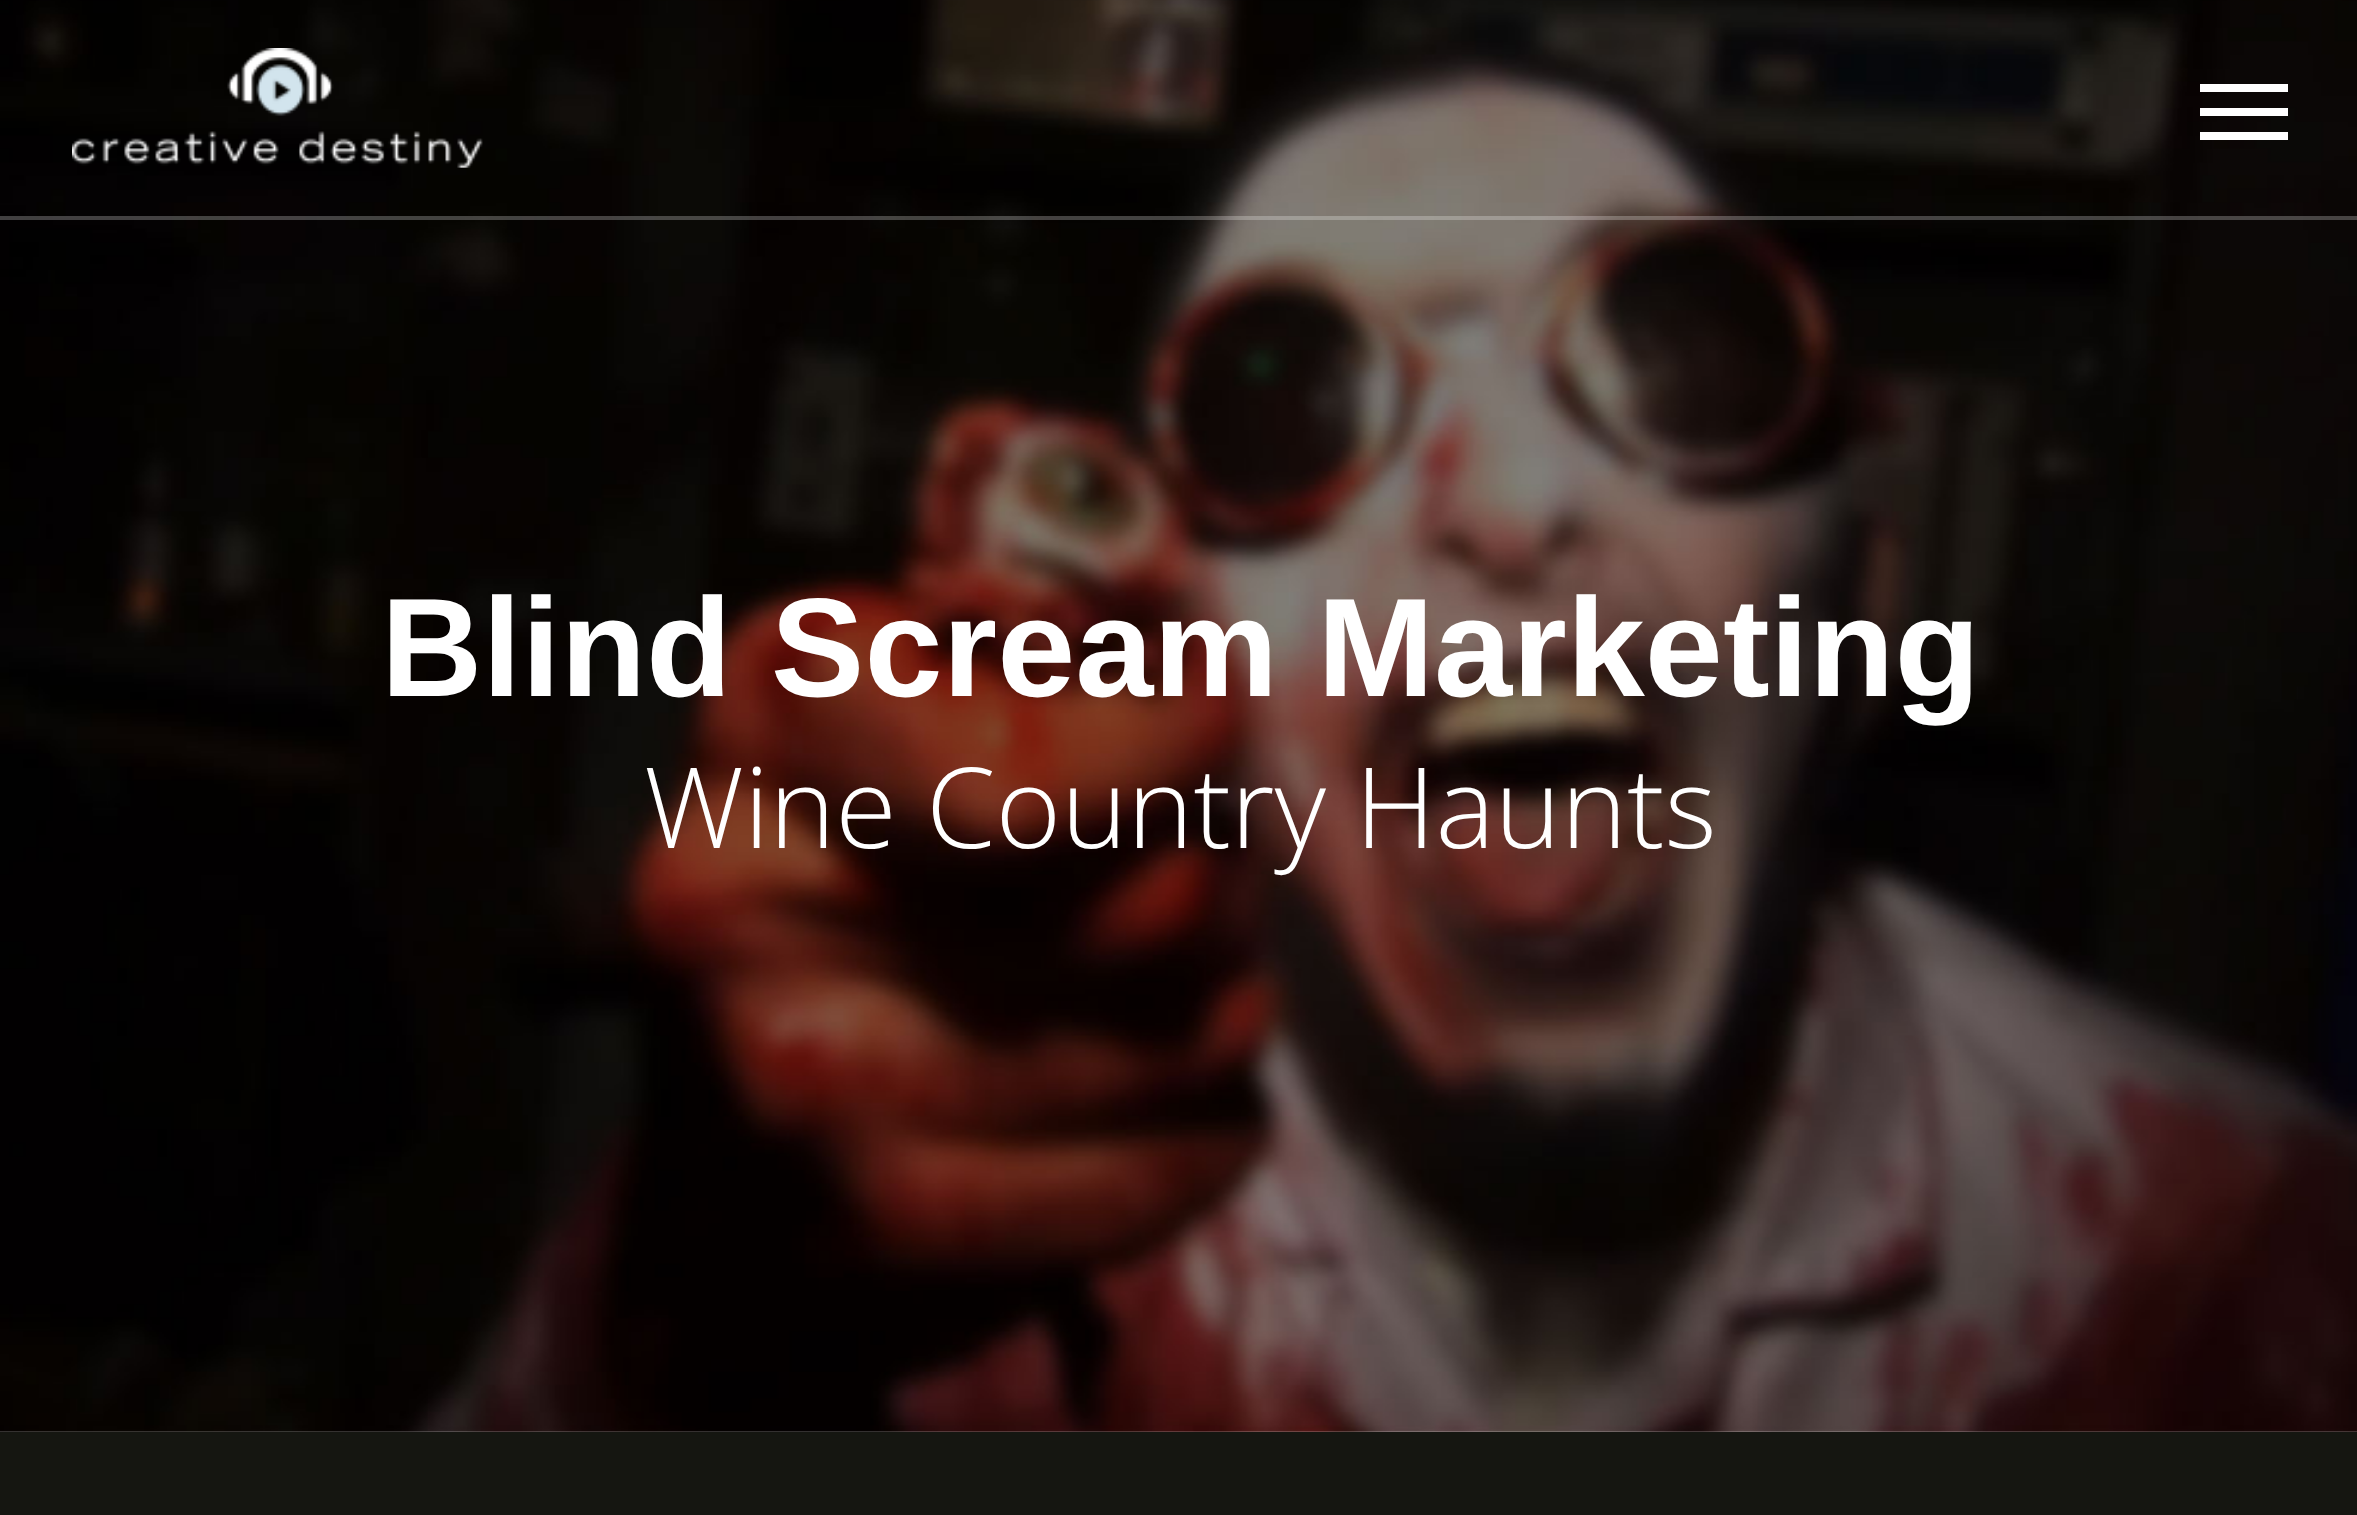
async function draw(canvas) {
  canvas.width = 2357;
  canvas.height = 1515;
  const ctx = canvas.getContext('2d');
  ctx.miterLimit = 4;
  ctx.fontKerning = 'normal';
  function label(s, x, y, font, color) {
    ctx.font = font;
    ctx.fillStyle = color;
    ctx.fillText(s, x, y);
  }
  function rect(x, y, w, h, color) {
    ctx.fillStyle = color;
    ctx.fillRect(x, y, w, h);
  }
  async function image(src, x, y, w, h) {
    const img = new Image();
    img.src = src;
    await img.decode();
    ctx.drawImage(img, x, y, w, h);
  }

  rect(0, 0, 2357, 1515, '#fff');
  await image('assets/img2.png', 0, 0, 2357, 1432);
  rect(0, 216, 2357, 4, '#ffffff40');
  await image('assets/img1.png', 72, 48, 411, 120);
  rect(2200, 84, 88, 8, '#fff');
  rect(2200, 132, 88, 8, '#fff');
  rect(2200, 108, 88, 8, '#fff');
  label('Blind Scream Marketing', 381, 696, 'bold 140.4px Liberation Sans', '#fff');
  label('Wine Country Haunts', 644, 848, '300 112px Open Sans', '#fff');
  rect(0, 1432, 2357, 83, '#151611');
}

draw(document.querySelector('canvas'));
